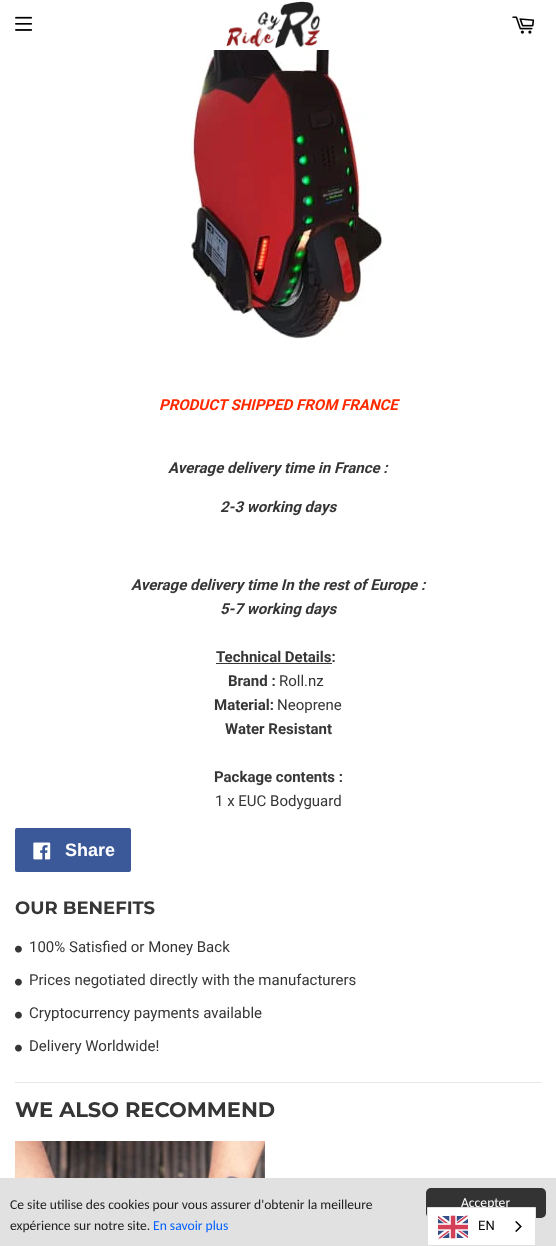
async function draw(canvas) {
  canvas.width = 556;
  canvas.height = 1246;
  const ctx = canvas.getContext('2d');
  ctx.miterLimit = 4;
  ctx.fontKerning = 'normal';
  function label(s, x, y, font, color) {
    ctx.font = font;
    ctx.fillStyle = color;
    ctx.fillText(s, x, y);
  }
  function rect(x, y, w, h, color) {
    ctx.fillStyle = color;
    ctx.fillRect(x, y, w, h);
  }
  function roundedRect(x, y, w, h, r, color) {
    ctx.fillStyle = color;
    ctx.beginPath();
    ctx.roundRect(x, y, w, h, r);
    ctx.fill();
  }
  async function image(src, x, y, w, h) {
    const img = new Image();
    img.src = src;
    await img.decode();
    ctx.drawImage(img, x, y, w, h);
  }

  rect(0, 0, 556, 1246, '#fff');
  await image('assets/img1.png', 15, 16, 18, 15);
  await image('assets/img2.png', 226, 1, 95, 48);
  await image('assets/img3.png', 512, 16, 23, 18);
  await image('assets/img4.png', 190, 50, 192, 289);
  label('PRODUCT SHIPPED FROM FRANCE', 159, 410, 'italic bold 15px Roboto', '#ff2a00');
  label('Average delivery time in France :', 168, 473, 'italic bold 15px Roboto', '#363636');
  label('2-3 working days', 220, 512, 'italic bold 15px Roboto', '#363636');
  label('Average delivery time In the rest of Europe :', 131, 590, 'italic bold 15px Roboto', '#363636');
  label('5-7 working days', 220, 614, 'italic bold 15px Roboto', '#363636');
  label('Technical Details:', 216, 662, 'bold 15px Roboto', '#363636');
  rect(216, 663, 116, 1, '#363636');
  label('Brand :', 228, 686, 'bold 15px Roboto', '#363636');
  label('Roll.nz', 279, 686, '15px Roboto', '#363636');
  label('Material:', 214, 710, 'bold 15px Roboto', '#363636');
  label('Neoprene', 277, 710, '15px Roboto', '#363636');
  label('Water Resistant', 225, 734, 'bold 15px Roboto', '#363636');
  label('Package contents :', 214, 782, 'bold 15px Roboto', '#363636');
  label('1 x EUC Bodyguard', 215, 806, '15px Roboto', '#363636');
  roundedRect(15, 828, 116, 44, 2, '#3b5998');
  await image('assets/img5.png', 33, 842, 18, 18);
  label('Share', 65, 856, 'bold 18px Liberation Sans', '#fff');
  label('OUR BENEFITS', 15, 914, '100 18px Montserrat', '#363636');
  await image('assets/img6.png', 15, 945, 7, 8);
  label('100% Satisfied or Money Back', 29, 952, '15px Roboto', '#363636');
  await image('assets/img6.png', 15, 978, 7, 8);
  label('Prices negotiated directly with the manufacturers', 29, 985, '15px Roboto', '#363636');
  await image('assets/img6.png', 15, 1011, 7, 8);
  label('Cryptocurrency payments available', 29, 1018, '15px Roboto', '#363636');
  await image('assets/img6.png', 15, 1044, 7, 8);
  label('Delivery Worldwide!', 29, 1051, '15px Roboto', '#363636');
  rect(15, 1082, 526, 1, '#e6e6e6');
  label('WE ALSO RECOMMEND', 15, 1117, '100 21px Montserrat', '#363636');
  await image('assets/img7.png', 15, 1141, 250, 37);
  rect(0, 1178, 556, 68, '#e1e1e1');
  label('Ce site utilise des cookies pour vous assurer d\'obtenir la meilleure', 10, 1209, '13.6px Carlito', '#202020');
  label('expérience sur notre site.', 10, 1230, '13.6px Carlito', '#202020');
  label('En savoir plus', 153, 1230, '13.6px Carlito', '#0060ff');
  roundedRect(426, 1188, 120, 30, 5, '#333');
  label('Accepter', 461, 1207, '13.6px Carlito', '#fff');
  ctx.beginPath();
  ctx.rect(427.5, 1207.5, 108, 38);
  ctx.fill();
  ctx.strokeStyle = '#e0e0e0';
  ctx.stroke();
  await image('assets/img8.png', 438, 1215, 30, 24);
  label('EN', 478, 1230, '13px Roboto', '#000');
  await image('assets/img9.png', 515, 1221, 7, 11);
}

draw(document.querySelector('canvas'));
